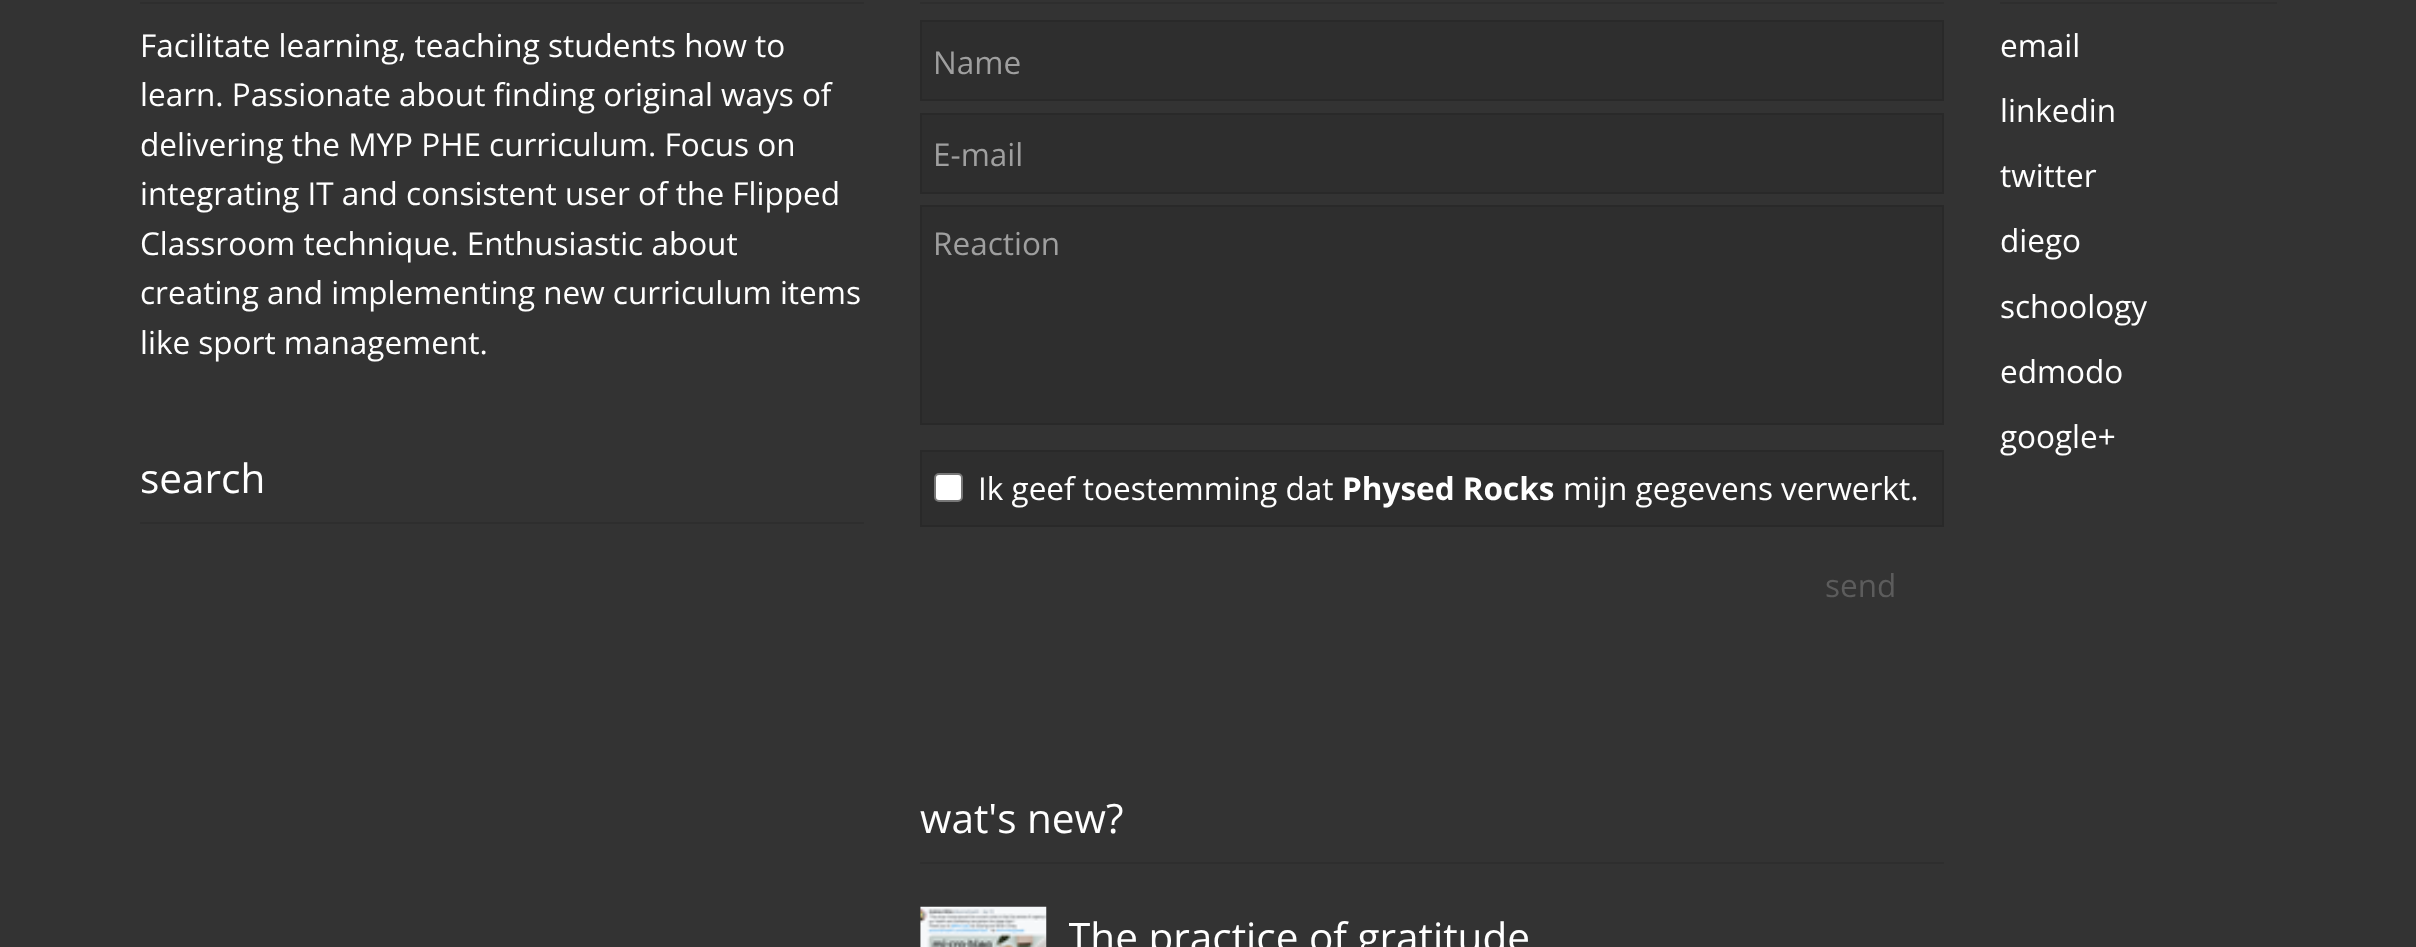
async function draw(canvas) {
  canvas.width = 2416;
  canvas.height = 947;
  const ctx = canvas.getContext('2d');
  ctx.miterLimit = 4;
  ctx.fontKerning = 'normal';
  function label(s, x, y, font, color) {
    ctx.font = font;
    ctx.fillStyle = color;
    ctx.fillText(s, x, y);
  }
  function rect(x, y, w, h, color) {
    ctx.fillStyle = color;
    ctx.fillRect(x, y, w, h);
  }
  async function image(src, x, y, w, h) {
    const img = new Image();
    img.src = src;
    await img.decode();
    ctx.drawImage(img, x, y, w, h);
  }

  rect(0, 0, 2416, 947, '#333');
  rect(140, 2, 724, 2, '#2e2e2e');
  label('Facilitate learning, teaching students how to', 140, 57, '31.5px Open Sans', '#fff');
  label('learn. Passionate about finding original ways of', 140, 106, '31.5px Open Sans', '#fff');
  label('delivering the MYP PHE curriculum. Focus on', 140, 156, '31.5px Open Sans', '#fff');
  label('integrating IT and consistent user of the Flipped', 140, 205, '31.5px Open Sans', '#fff');
  label('Classroom technique. Enthusiastic about', 140, 255, '31.5px Open Sans', '#fff');
  label('creating and implementing new curriculum items', 140, 304, '31.5px Open Sans', '#fff');
  label('like sport management.', 140, 354, '31.5px Open Sans', '#fff');
  label('search', 140, 493, '40.5px Open Sans', '#fff');
  rect(140, 522, 724, 2, '#2e2e2e');
  rect(920, 2, 1024, 2, '#2e2e2e');
  ctx.beginPath();
  ctx.rect(921, 21, 1022, 79);
  ctx.fill();
  ctx.strokeStyle = '#292929';
  ctx.lineWidth = 2;
  ctx.stroke();
  label('Name', 933, 74, '31.5px Open Sans', '#9f9f9f');
  ctx.fillStyle = '#2e2e2e';
  ctx.beginPath();
  ctx.rect(921, 114, 1022, 79);
  ctx.fill();
  ctx.stroke();
  label('E-mail', 933, 166, '31.5px Open Sans', '#9f9f9f');
  ctx.fillStyle = '#2e2e2e';
  ctx.beginPath();
  ctx.rect(921, 206, 1022, 218);
  ctx.fill();
  ctx.stroke();
  label('Reaction', 933, 255, '31.5px Open Sans', '#9f9f9f');
  ctx.fillStyle = '#2e2e2e';
  ctx.beginPath();
  ctx.rect(921, 451, 1022, 75);
  ctx.fill();
  ctx.stroke();
  ctx.fillStyle = '#fff';
  ctx.beginPath();
  ctx.roundRect(935, 474, 27, 27, 4);
  ctx.fill();
  ctx.strokeStyle = '#767676';
  ctx.stroke();
  label('Ik geef toestemming dat', 978, 500, '31.5px Open Sans', '#fff');
  label('Physed Rocks', 1342, 500, 'bold 31.5px Open Sans', '#fff');
  label('mijn gegevens verwerkt.', 1563, 500, '31.5px Open Sans', '#fff');
  label('send', 1825, 597, '31.5px Open Sans', '#5c5c5c');
  label('wat\'s new?', 920, 833, '40.5px Open Sans', '#fff');
  rect(920, 862, 1024, 2, '#2e2e2e');
  await image('assets/img1.png', 920, 906, 127, 41);
  ctx.save();
  ctx.beginPath();
  ctx.rect(1069, 907, 605, 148);
  ctx.clip();
  label('The practice of gratitude', 1068, 952, '40.5px Open Sans', '#fff');
  ctx.restore();
  rect(2000, 2, 277, 2, '#2e2e2e');
  label('email', 2000, 57, '31.5px Open Sans', '#fff');
  label('linkedin', 2000, 122, '31.5px Open Sans', '#fff');
  label('twitter', 2000, 187, '31.5px Open Sans', '#fff');
  label('diego', 2000, 252, '31.5px Open Sans', '#fff');
  label('schoology', 2000, 318, '31.5px Open Sans', '#fff');
  label('edmodo', 2000, 383, '31.5px Open Sans', '#fff');
  label('google+', 2000, 448, '31.5px Open Sans', '#fff');
}

draw(document.querySelector('canvas'));
